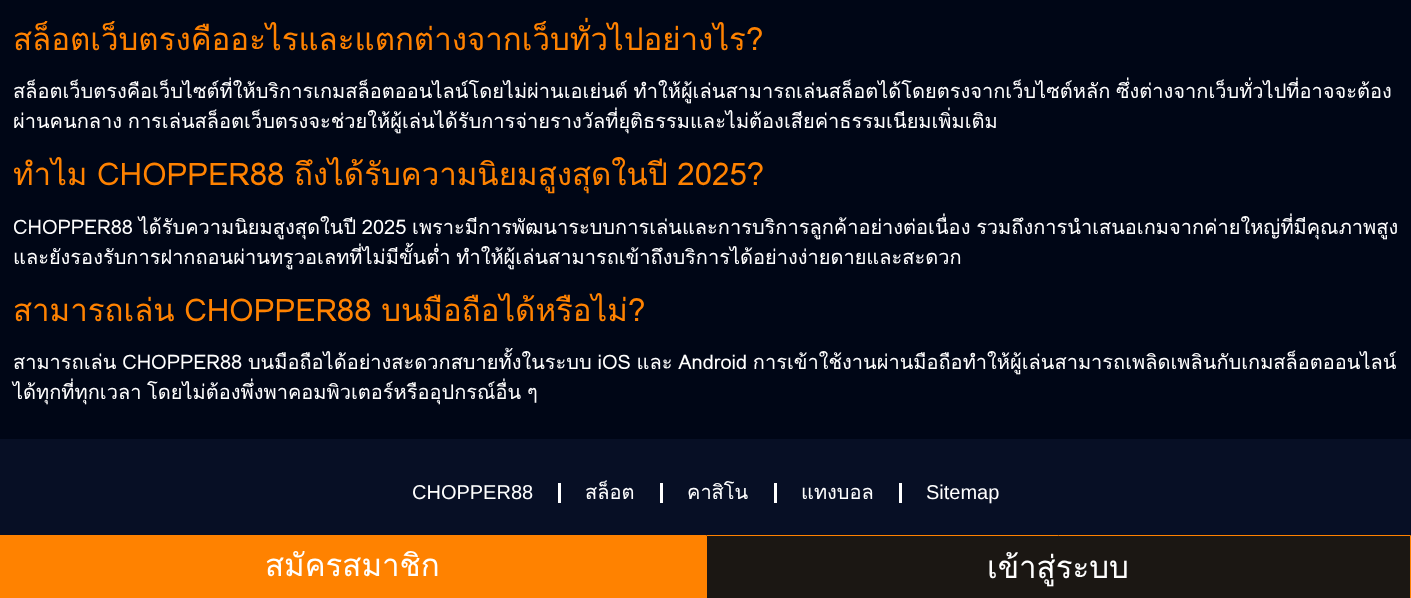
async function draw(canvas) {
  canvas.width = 1411;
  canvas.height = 598;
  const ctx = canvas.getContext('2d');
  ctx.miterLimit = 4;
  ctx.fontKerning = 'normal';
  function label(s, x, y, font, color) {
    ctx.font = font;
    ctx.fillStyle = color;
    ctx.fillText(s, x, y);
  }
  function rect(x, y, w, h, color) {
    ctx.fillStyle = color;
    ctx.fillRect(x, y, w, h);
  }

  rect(0, 0, 1411, 598, '#000616');
  label('สล็อตเว็บตรงคืออะไรและแตกต่างจากเว็บทั่วไปอย่างไร?', 13, 50, '31.25px Loma', '#ff8200');
  ctx.wordSpacing = '-1px';
  label('สล็อตเว็บตรงคือเว็บไซต์ที่ให้บริการเกมสล็อตออนไลน์โดยไม่ผ่านเอเย่นต์ ทำให้ผู้เล่นสามารถเล่นสล็อตได้โดยตรงจากเว็บไซต์หลัก ซึ่งต่างจากเว็บทั่วไปที่อาจจะต้อง', 13, 98, '20px Loma', '#fff');
  label('ผ่านคนกลาง การเล่นสล็อตเว็บตรงจะช่วยให้ผู้เล่นได้รับการจ่ายรางวัลที่ยุติธรรมและไม่ต้องเสียค่าธรรมเนียมเพิ่มเติม', 13, 128, '20px Loma', '#fff');
  label('ทำไม CHOPPER88 ถึงได้รับความนิยมสูงสุดในปี 2025?', 13, 185, '31.25px Loma', '#ff8200');
  label('CHOPPER88 ได้รับความนิยมสูงสุดในปี 2025 เพราะมีการพัฒนาระบบการเล่นและการบริการลูกค้าอย่างต่อเนื่อง รวมถึงการนำเสนอเกมจากค่ายใหญ่ที่มีคุณภาพสูง', 13, 234, '20px Loma', '#fff');
  label('และยังรองรับการฝากถอนผ่านทรูวอเลทที่ไม่มีขั้นต่ำ ทำให้ผู้เล่นสามารถเข้าถึงบริการได้อย่างง่ายดายและสะดวก', 13, 264, '20px Loma', '#fff');
  label('สามารถเล่น CHOPPER88 บนมือถือได้หรือไม่?', 13, 321, '31.25px Loma', '#ff8200');
  label('สามารถเล่น CHOPPER88 บนมือถือได้อย่างสะดวกสบายทั้งในระบบ iOS และ Android การเข้าใช้งานผ่านมือถือทำให้ผู้เล่นสามารถเพลิดเพลินกับเกมสล็อตออนไลน์', 13, 369, '20px Loma', '#fff');
  label('ได้ทุกที่ทุกเวลา โดยไม่ต้องพึ่งพาคอมพิวเตอร์หรืออุปกรณ์อื่น ๆ', 13, 399, '20px Loma', '#fff');
  rect(0, 439, 1411, 96, '#070f25');
  ctx.wordSpacing = '0px';
  label('CHOPPER88', 412, 499, '20px Liberation Sans', '#fff');
  rect(558, 483, 3, 20, '#fff');
  label('สล็อต', 585, 499, '20px Loma', '#fff');
  rect(660, 483, 3, 20, '#fff');
  label('คาสิโน', 687, 499, '20px Loma', '#fff');
  rect(774, 483, 3, 20, '#fff');
  label('แทงบอล', 801, 499, '20px Loma', '#fff');
  rect(899, 483, 3, 20, '#fff');
  label('Sitemap', 926, 499, '20px Liberation Sans', '#fff');
  rect(0, 535, 706, 63, '#ff8200');
  label('สมัครสมาชิก', 265, 576, '31.25px Loma', '#fff');
  ctx.fillStyle = '#1b1713';
  ctx.beginPath();
  ctx.rect(706.5, 535.5, 704, 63);
  ctx.fill();
  ctx.strokeStyle = '#ff8200';
  ctx.stroke();
  label('เข้าสู่ระบบ', 987, 578, '31.25px Loma', '#fff');
}

draw(document.querySelector('canvas'));
